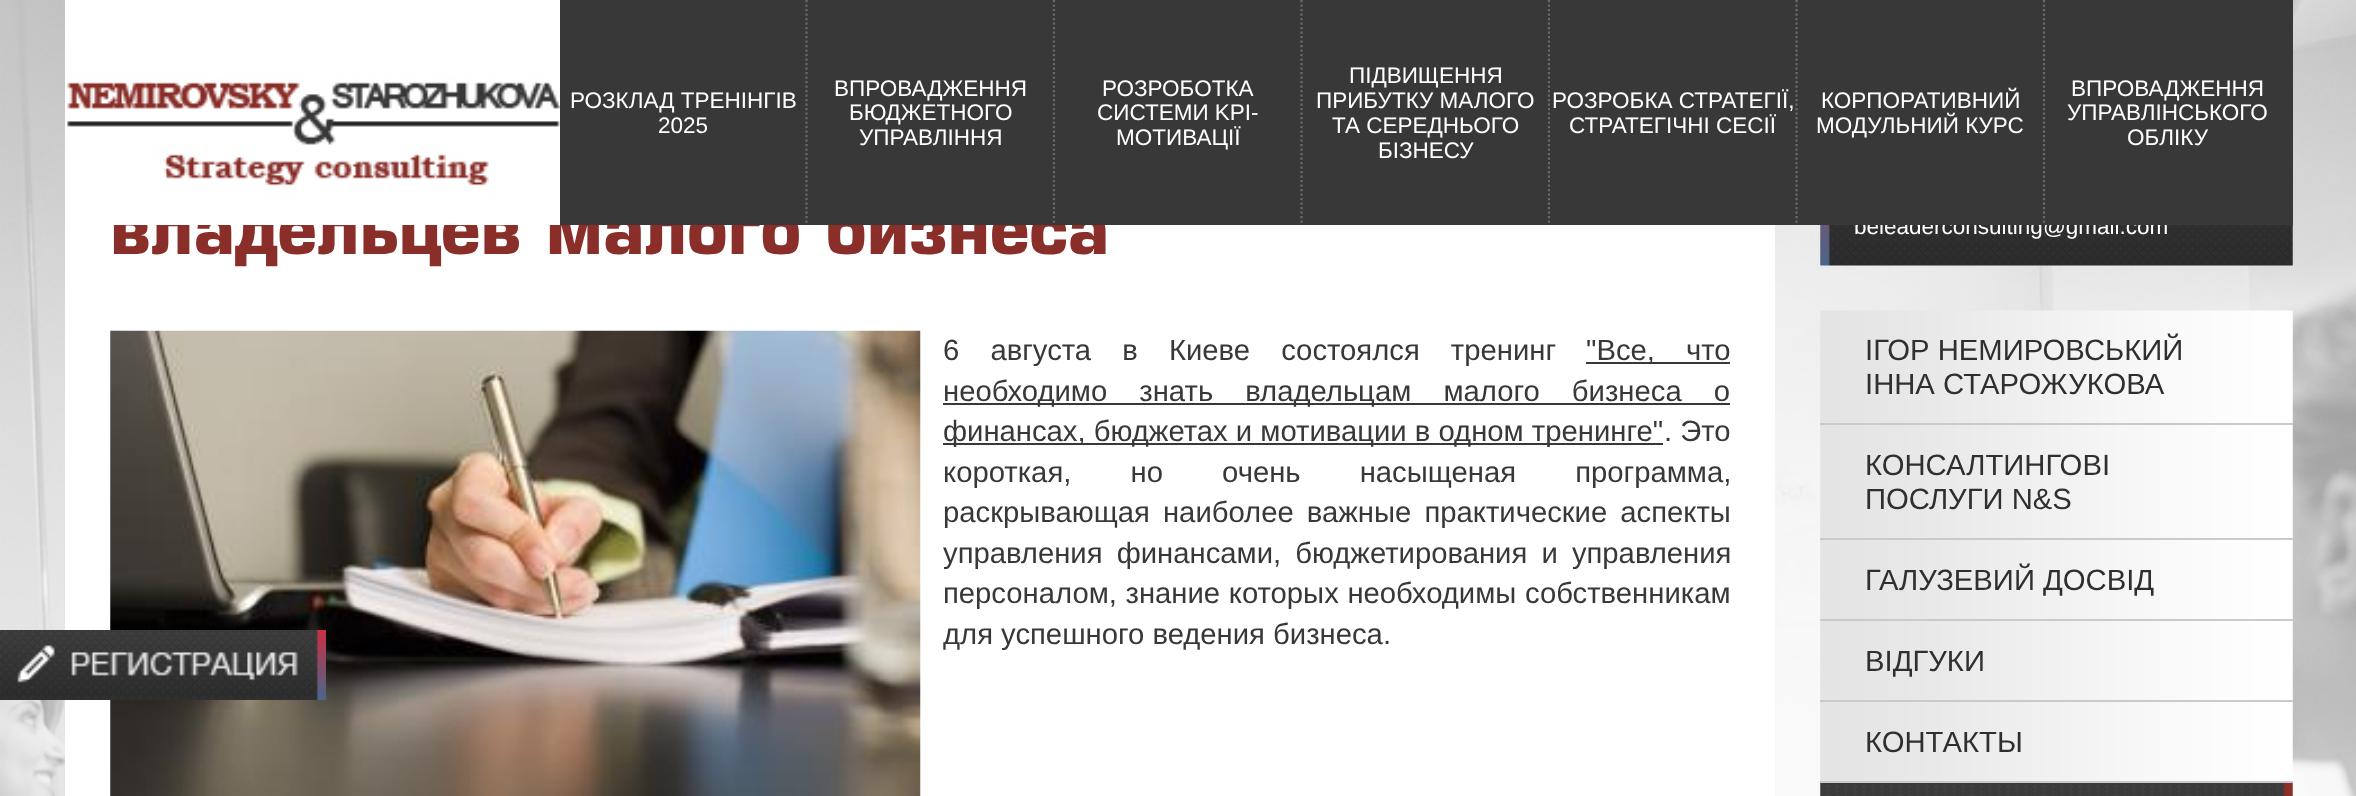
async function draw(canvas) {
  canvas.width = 2356;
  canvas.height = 796;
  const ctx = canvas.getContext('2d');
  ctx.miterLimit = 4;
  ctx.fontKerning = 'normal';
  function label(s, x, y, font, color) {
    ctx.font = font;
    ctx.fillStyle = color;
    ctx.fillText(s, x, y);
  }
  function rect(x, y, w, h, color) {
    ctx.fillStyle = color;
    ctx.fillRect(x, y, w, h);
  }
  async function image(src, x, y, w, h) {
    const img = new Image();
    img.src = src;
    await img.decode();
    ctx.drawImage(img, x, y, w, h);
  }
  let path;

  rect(0, 0, 2356, 796, '#fff');
  await image('assets/img1.png', 0, 0, 2356, 796);
  rect(65, 225, 1710, 571, '#fff');
  label('владельцев малого бизнеса', 110, 254, 'bold 74.25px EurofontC', '#892e29');
  await image('assets/img4.png', 1820, 225, 473, 41);
  label('beleaderconsulting@gmail.com', 1854, 234, '22.5px Liberation Sans', '#fff');
  rect(560, 0, 1485, 225, '#383838');
  rect(65, 0, 2, 225, '#fff');
  await image('assets/img2.png', 67, 0, 493, 225);
  path = new Path2D('M806.5 0V225');
  ctx.strokeStyle = '#6a6a6a';
  ctx.lineWidth = 2.2;
  ctx.setLineDash([2.25, 2.25]);
  ctx.stroke(path);
  label('РОЗКЛАД ТРЕНІНГІВ', 570, 108, '22.5px Liberation Sans', '#fff');
  label('2025', 658, 133, '22.5px Liberation Sans', '#fff');
  path = new Path2D('M1054 0V225');
  ctx.stroke(path);
  label('ВПРОВАДЖЕННЯ', 834, 96, '22.5px Liberation Sans', '#fff');
  label('БЮДЖЕТНОГО', 849, 120, '22.5px Liberation Sans', '#fff');
  label('УПРАВЛІННЯ', 859, 145, '22.5px Liberation Sans', '#fff');
  rect(1055, 0, 1, 223, '#383838');
  path = new Path2D('M1301.5 0V225');
  ctx.stroke(path);
  label('РОЗРОБОТКА', 1102, 96, '22.5px Liberation Sans', '#fff');
  label('СИСТЕМИ KPI-', 1097, 120, '22.5px Liberation Sans', '#fff');
  label('МОТИВАЦІЇ', 1116, 145, '22.5px Liberation Sans', '#fff');
  path = new Path2D('M1549 0V225');
  ctx.stroke(path);
  label('ПІДВИЩЕННЯ', 1349, 83, '22.5px Liberation Sans', '#fff');
  label('ПРИБУТКУ МАЛОГО', 1316, 108, '22.5px Liberation Sans', '#fff');
  label('ТА СЕРЕДНЬОГО', 1332, 133, '22.5px Liberation Sans', '#fff');
  label('БІЗНЕСУ', 1378, 158, '22.5px Liberation Sans', '#fff');
  rect(1550, 0, 1, 223, '#383838');
  path = new Path2D('M1796.5 0V225');
  ctx.stroke(path);
  label('РОЗРОБКА СТРАТЕГІЇ,', 1552, 108, '22.5px Liberation Sans', '#fff');
  label('СТРАТЕГІЧНІ СЕСІЇ', 1569, 133, '22.5px Liberation Sans', '#fff');
  path = new Path2D('M2044 0V225');
  ctx.stroke(path);
  label('КОРПОРАТИВНИЙ', 1821, 108, '22.5px Liberation Sans', '#fff');
  label('МОДУЛЬНИЙ КУРС', 1816, 133, '22.5px Liberation Sans', '#fff');
  rect(2045, 0, 248, 225, '#383838');
  label('ВПРОВАДЖЕННЯ', 2071, 96, '22.5px Liberation Sans', '#fff');
  label('УПРАВЛІНСЬКОГО', 2067, 120, '22.5px Liberation Sans', '#fff');
  label('ОБЛІКУ', 2127, 145, '22.5px Liberation Sans', '#fff');
  await image('assets/img3.png', 110, 330, 811, 466);
  ctx.wordSpacing = '23px';
  label('6 августа в Киеве состоялся тренинг', 943, 360, '29.25px Liberation Sans', '#383838');
  rect(1586, 362, 144, 2, '#383838');
  label('"Все, что', 1586, 360, '29.25px Liberation Sans', '#383838');
  rect(943, 403, 787, 2, '#383838');
  ctx.wordSpacing = '24px';
  label('необходимо знать владельцам малого бизнеса о', 943, 401, '29.25px Liberation Sans', '#383838');
  rect(943, 443, 720, 2, '#383838');
  ctx.wordSpacing = '0px';
  label('финансах, бюджетах и мотивации в одном тренинге"', 943, 441, '29.25px Liberation Sans', '#383838');
  label('. Это', 1664, 441, '29.25px Liberation Sans', '#383838');
  ctx.wordSpacing = '51px';
  label('короткая, но очень насыщеная программа,', 943, 482, '29.25px Liberation Sans', '#383838');
  ctx.wordSpacing = '5px';
  label('раскрывающая наиболее важные практические аспекты', 943, 522, '29.25px Liberation Sans', '#383838');
  ctx.wordSpacing = '6px';
  label('управления финансами, бюджетирования и управления', 943, 563, '29.25px Liberation Sans', '#383838');
  ctx.wordSpacing = '0.5px';
  label('персоналом, знание которых необходимы собственникам', 943, 603, '29.25px Liberation Sans', '#383838');
  ctx.wordSpacing = '0px';
  label('для успешного ведения бизнеса.', 943, 644, '29.25px Liberation Sans', '#383838');
  await image('assets/img5.png', 1820, 310, 473, 486);
  rect(1820, 423, 473, 2, '#cacaca');
  label('ІГОР НЕМИРОВСЬКИЙ', 1865, 360, '29.25px Liberation Sans', '#2f2f2f');
  label('ІННА СТАРОЖУКОВА', 1865, 394, '29.25px Liberation Sans', '#2f2f2f');
  rect(1820, 538, 473, 2, '#cacaca');
  label('КОНСАЛТИНГОВІ', 1865, 475, '29.25px Liberation Sans', '#2f2f2f');
  label('ПОСЛУГИ N&S', 1865, 509, '29.25px Liberation Sans', '#2f2f2f');
  rect(1820, 619, 473, 2, '#cacaca');
  label('ГАЛУЗЕВИЙ ДОСВІД', 1865, 590, '29.25px Liberation Sans', '#2f2f2f');
  rect(1820, 700, 473, 2, '#cacaca');
  label('ВІДГУКИ', 1865, 671, '29.25px Liberation Sans', '#2f2f2f');
  rect(1820, 781, 473, 2, '#cacaca');
  label('КОНТАКТЫ', 1865, 752, '29.25px Liberation Sans', '#2f2f2f');
  await image('assets/img6.png', 1820, 783, 473, 13);
  await image('assets/img7.png', 0, 630, 326, 70);
}

draw(document.querySelector('canvas'));
